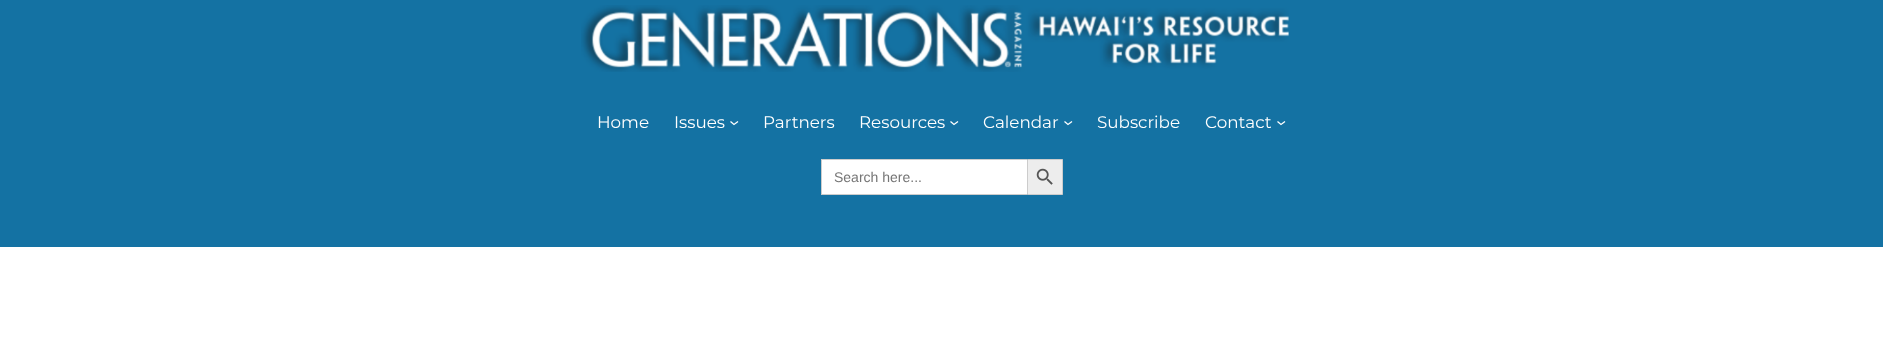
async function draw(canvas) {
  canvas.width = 1883;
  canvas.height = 340;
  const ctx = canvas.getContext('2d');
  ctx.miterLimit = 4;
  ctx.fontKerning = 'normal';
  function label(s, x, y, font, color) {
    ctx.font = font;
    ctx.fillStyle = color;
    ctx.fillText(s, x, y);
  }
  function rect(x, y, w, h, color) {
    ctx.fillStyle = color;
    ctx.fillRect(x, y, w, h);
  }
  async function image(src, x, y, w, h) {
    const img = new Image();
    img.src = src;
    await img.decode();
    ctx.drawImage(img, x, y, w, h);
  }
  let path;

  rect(0, 0, 1883, 340, '#fff');
  rect(0, 0, 1883, 247, '#1472a3');
  await image('assets/img1.png', 581, 5, 708, 67);
  label('Home', 597, 128, '16.75px Montserrat', '#fff');
  label('Issues', 674, 128, '16.75px Montserrat', '#fff');
  path = new Path2D('M730.5 121.5L734 124.5L738 121.5');
  ctx.strokeStyle = '#fff';
  ctx.lineWidth = 1.3;
  ctx.stroke(path);
  label('Partners', 763, 128, '16.75px Montserrat', '#fff');
  label('Resources', 859, 128, '16.75px Montserrat', '#fff');
  path = new Path2D('M950.5 121.5L954 124.5L958 121.5');
  ctx.stroke(path);
  label('Calendar', 983, 128, '16.75px Montserrat', '#fff');
  path = new Path2D('M1064.5 121.5L1068 124.5L1072 121.5');
  ctx.stroke(path);
  label('Subscribe', 1097, 128, '16.75px Montserrat', '#fff');
  label('Contact', 1205, 128, '16.75px Montserrat', '#fff');
  path = new Path2D('M1277.5 121.5L1281 124.5L1285 121.5');
  ctx.stroke(path);
  rect(822, 160, 205, 34, '#fff');
  rect(821, 159, 206, 1, '#ccc');
  rect(821, 194, 206, 1, '#ccc');
  rect(821, 159, 1, 36, '#ccc');
  label('Search here...', 834, 182, '14px Liberation Sans', '#757575');
  ctx.fillStyle = '#ededed';
  ctx.beginPath();
  ctx.rect(1027.5, 159.5, 35, 35);
  ctx.fill();
  ctx.strokeStyle = '#ccc';
  ctx.lineWidth = 1;
  ctx.stroke();
  await image('assets/img2.png', 1036, 168, 17, 17);
}

draw(document.querySelector('canvas'));
